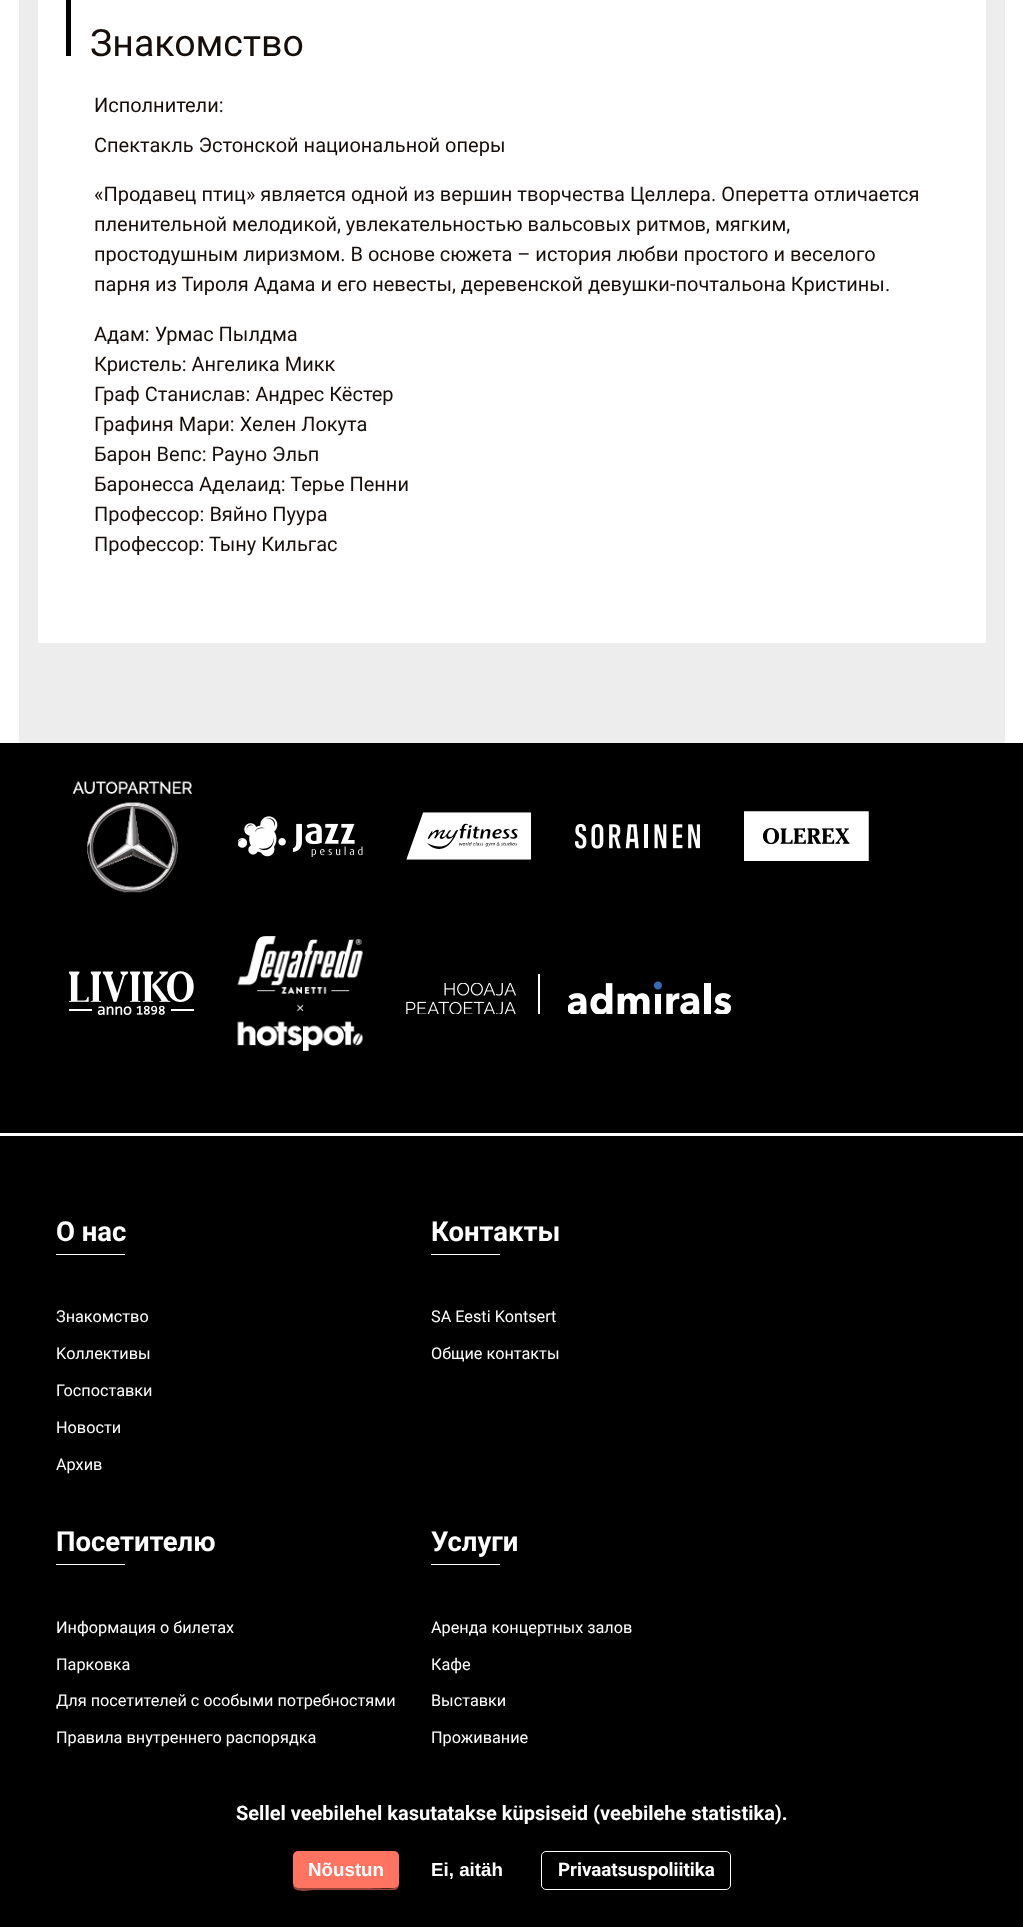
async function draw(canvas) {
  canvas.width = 1023;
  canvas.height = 1927;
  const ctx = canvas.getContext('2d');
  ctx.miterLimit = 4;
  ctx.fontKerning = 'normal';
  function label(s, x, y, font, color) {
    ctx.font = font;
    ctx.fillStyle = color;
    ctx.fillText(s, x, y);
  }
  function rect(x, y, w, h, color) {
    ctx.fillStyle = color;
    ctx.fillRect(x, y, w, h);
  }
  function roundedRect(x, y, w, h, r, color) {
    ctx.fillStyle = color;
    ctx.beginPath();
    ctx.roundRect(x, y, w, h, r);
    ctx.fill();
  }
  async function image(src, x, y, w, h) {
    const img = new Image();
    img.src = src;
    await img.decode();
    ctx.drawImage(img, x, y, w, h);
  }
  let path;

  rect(0, 0, 1023, 1927, '#fff');
  rect(19, 0, 986, 743, '#ededed');
  rect(38, 0, 948, 643, '#fff');
  rect(66, 0, 5, 56, '#000');
  label('Знакомство', 90, 56, '37.5px Roboto', '#150e0b');
  label('Исполнители:', 94, 112, '20px Roboto', '#150e0b');
  label('Спектакль Эстонской национальной оперы', 94, 152, '20px Roboto', '#150e0b');
  label('«Продавец птиц» является одной из вершин творчества Целлера. Оперетта отличается', 94, 201, '20px Roboto', '#150e0b');
  label('пленительной мелодикой, увлекательностью вальсовых ритмов, мягким,', 94, 231, '20px Roboto', '#150e0b');
  label('простодушным лиризмом. В основе сюжета – история любви простого и веселого', 94, 261, '20px Roboto', '#150e0b');
  label('парня из Тироля Адама и его невесты, деревенской девушки-почтальона Кристины.', 94, 291, '20px Roboto', '#150e0b');
  label('Адам: Урмас Пылдма', 94, 341, '20px Roboto', '#150e0b');
  label('Кристель: Ангелика Микк', 94, 371, '20px Roboto', '#150e0b');
  label('Граф Станислав: Андрес Кёстер', 94, 401, '20px Roboto', '#150e0b');
  label('Графиня Мари: Хелен Локута', 94, 431, '20px Roboto', '#150e0b');
  label('Барон Вепс: Рауно Эльп', 94, 461, '20px Roboto', '#150e0b');
  label('Баронесса Аделаид: Терье Пенни', 94, 491, '20px Roboto', '#150e0b');
  label('Профессор: Вяйно Пуура', 94, 521, '20px Roboto', '#150e0b');
  label('Профессор: Тыну Кильгас', 94, 551, '20px Roboto', '#150e0b');
  rect(0, 743, 1023, 390, '#000');
  await image('assets/img1.png', 72, 781, 120, 112);
  await image('assets/img2.png', 238, 816, 125, 41);
  await image('assets/img3.png', 406, 812, 125, 48);
  await image('assets/img4.png', 575, 824, 125, 25);
  await image('assets/img5.png', 744, 811, 125, 50);
  await image('assets/img6.png', 69, 971, 125, 44);
  await image('assets/img7.png', 237, 936, 126, 115);
  await image('assets/img8.png', 406, 974, 325, 40);
  rect(0, 1136, 1023, 791, '#000');
  label('О нас', 56, 1241, 'bold 27.5px Roboto', '#fff');
  rect(56, 1254, 69, 1, '#fff');
  label('Знакомство', 56, 1322, '16.25px Roboto', '#fff');
  label('Kоллективы', 56, 1359, '16.25px Roboto', '#fff');
  label('Госпоставки', 56, 1396, '16.25px Roboto', '#fff');
  label('Hовости', 56, 1433, '16.25px Roboto', '#fff');
  label('Aрхив', 56, 1470, '16.25px Roboto', '#fff');
  label('Контакты', 431, 1241, 'bold 27.5px Roboto', '#fff');
  rect(431, 1254, 69, 1, '#fff');
  label('SA Eesti Kontsert', 431, 1322, '16.25px Roboto', '#fff');
  label('Общие контакты', 431, 1359, '16.25px Roboto', '#fff');
  label('Посетителю', 56, 1551, 'bold 27.5px Roboto', '#fff');
  rect(56, 1564, 69, 1, '#fff');
  label('Информация о билетах', 56, 1633, '16.25px Roboto', '#fff');
  label('Парковка', 56, 1670, '16.25px Roboto', '#fff');
  label('Для посетителей с особыми потребностями', 56, 1706, '16.25px Roboto', '#fff');
  label('Правила внутреннего распорядка', 56, 1743, '16.25px Roboto', '#fff');
  label('Услуги', 431, 1551, 'bold 27.5px Roboto', '#fff');
  rect(431, 1564, 69, 1, '#fff');
  label('Аренда концертных залов', 431, 1633, '16.25px Roboto', '#fff');
  label('Кафе', 431, 1670, '16.25px Roboto', '#fff');
  label('Выставки', 431, 1706, '16.25px Roboto', '#fff');
  label('Проживание', 431, 1743, '16.25px Roboto', '#fff');
  label('Sellel veebilehel kasutatakse küpsiseid (veebilehe statistika).', 236, 1820, 'bold 20px Roboto', '#fff');
  ctx.fillStyle = '#99453a';
  path = new Path2D('M293 1885C293 1894 311 1890 314 1890H394C401 1890 399 1880 399 1876V1857C399 1895 405 1888 362 1888L296 1887C295 1887 294 1886 293 1885Z');
  ctx.fill(path);
  roundedRect(293, 1851, 106, 37, 5, '#ff7361');
  label('Nõustun', 308, 1876, 'bold 18.75px Liberation Sans', '#fff');
  label('Ei, aitäh', 431, 1876, 'bold 18.75px Liberation Sans', '#fff');
  ctx.beginPath();
  ctx.roundRect(541.5, 1851.5, 189, 38, 4.5);
  ctx.strokeStyle = '#fff';
  ctx.stroke();
  label('Privaatsuspoliitika', 558, 1876, 'bold 18.75px Roboto', '#fff');
}

draw(document.querySelector('canvas'));
